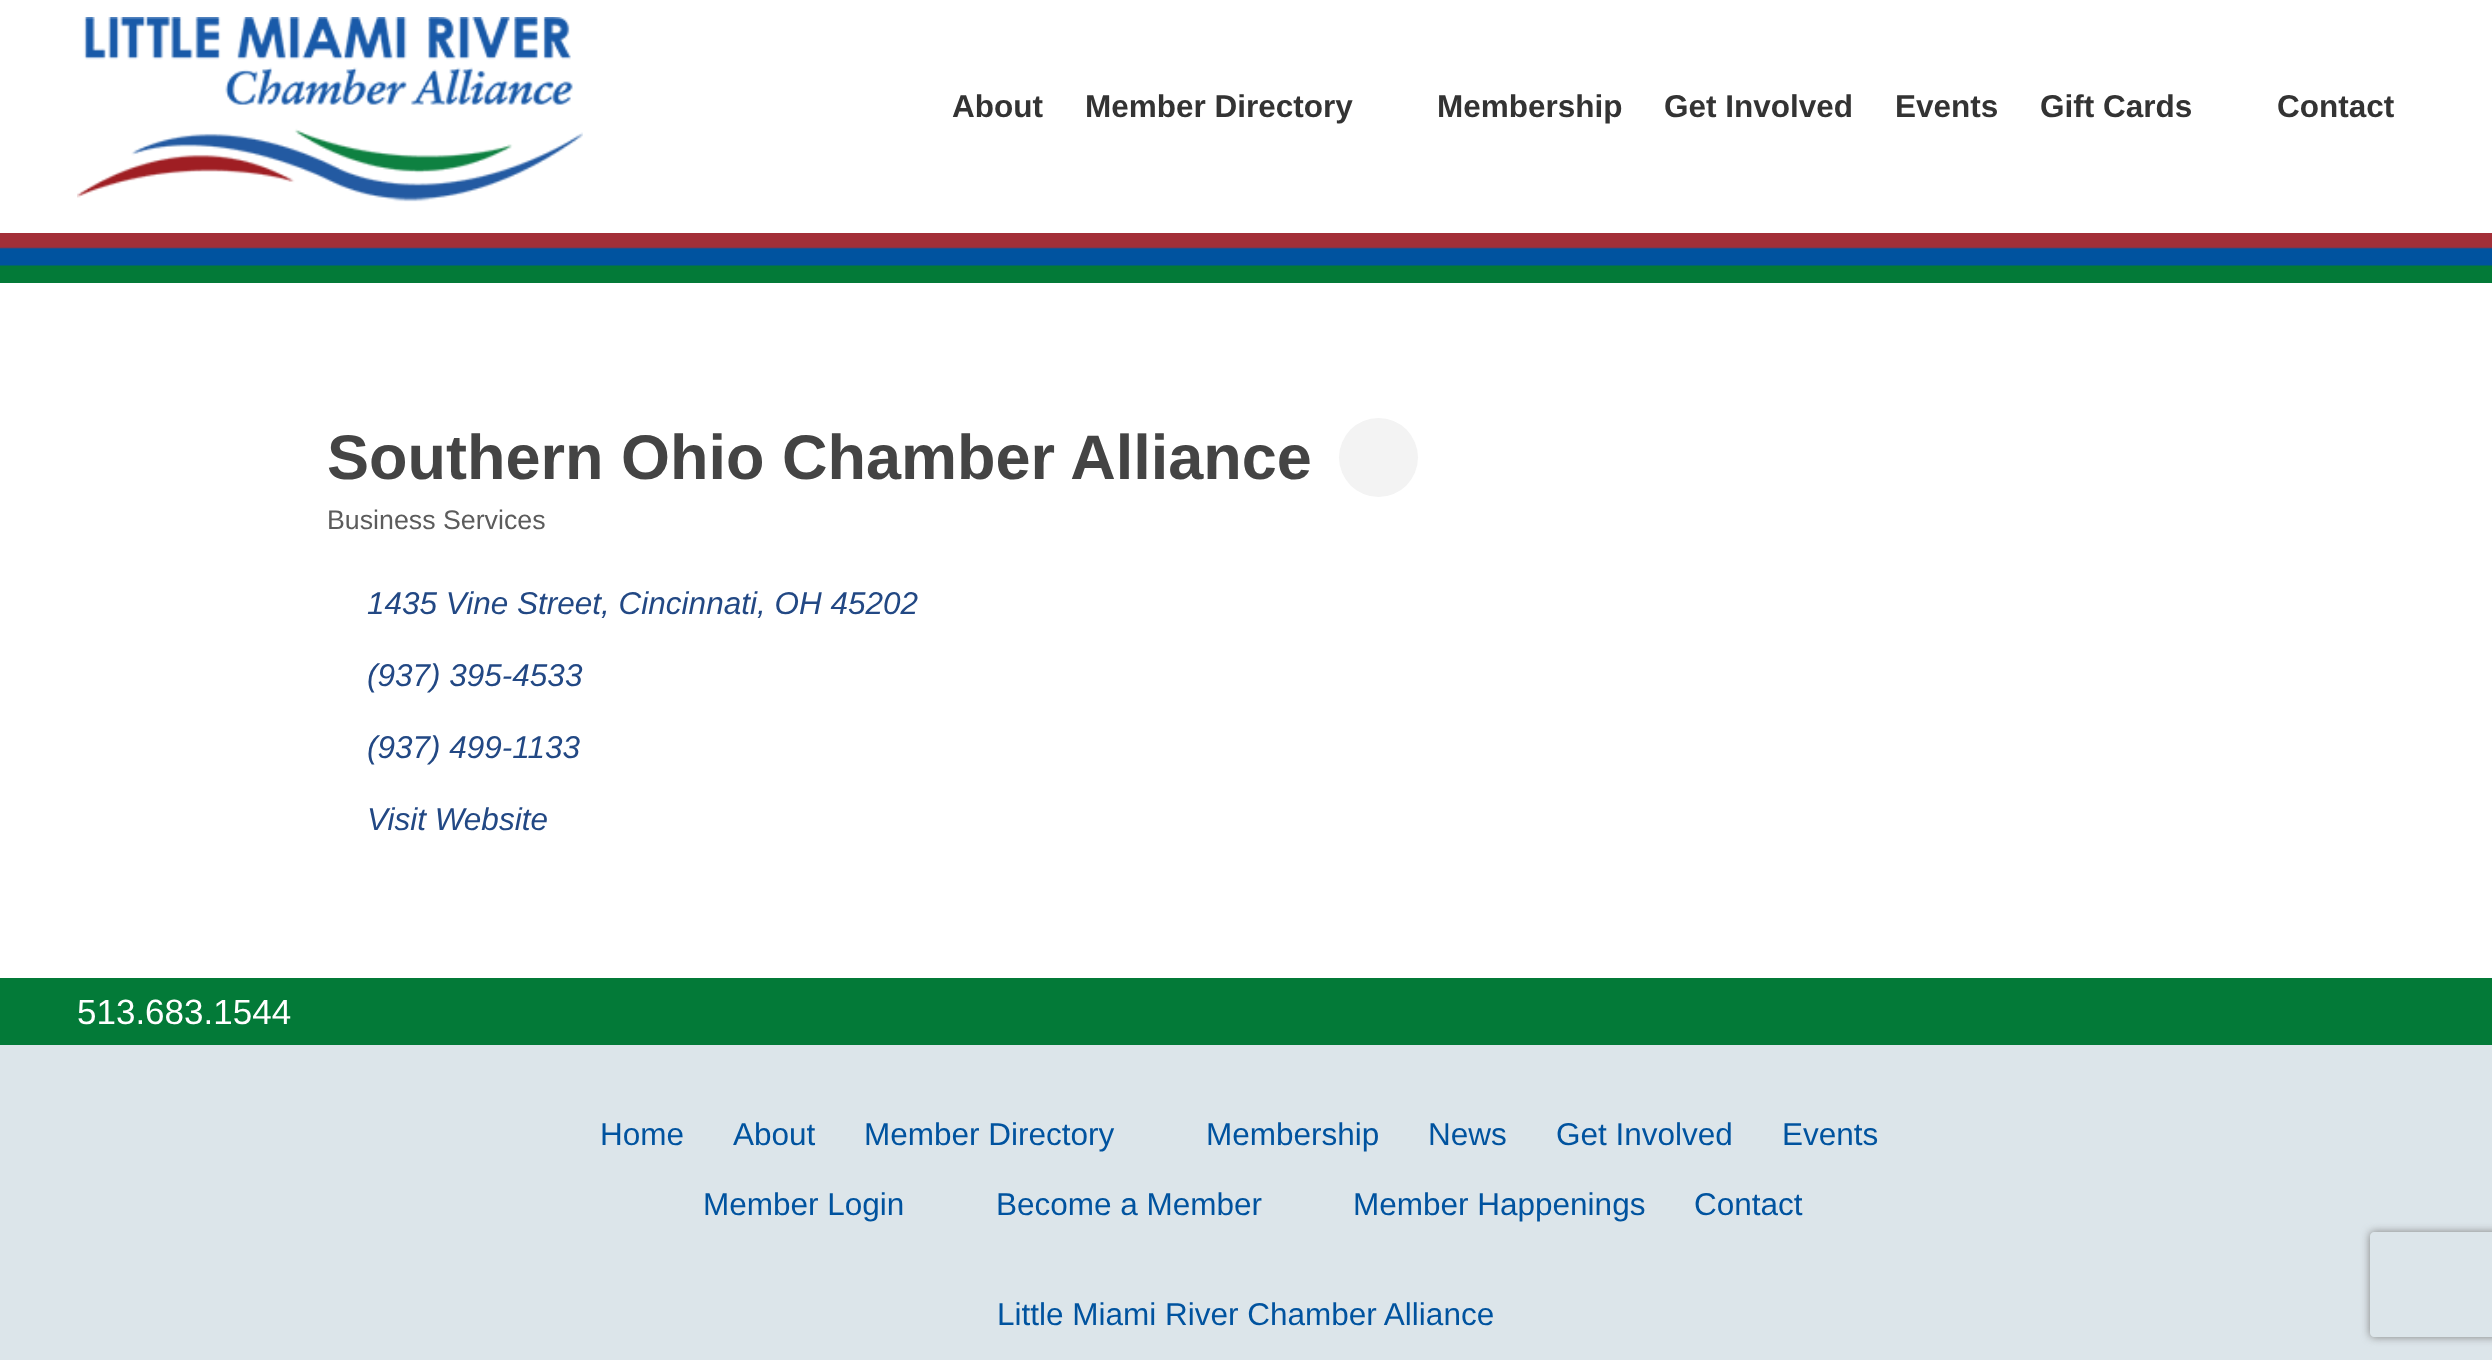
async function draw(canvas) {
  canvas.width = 2492;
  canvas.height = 1360;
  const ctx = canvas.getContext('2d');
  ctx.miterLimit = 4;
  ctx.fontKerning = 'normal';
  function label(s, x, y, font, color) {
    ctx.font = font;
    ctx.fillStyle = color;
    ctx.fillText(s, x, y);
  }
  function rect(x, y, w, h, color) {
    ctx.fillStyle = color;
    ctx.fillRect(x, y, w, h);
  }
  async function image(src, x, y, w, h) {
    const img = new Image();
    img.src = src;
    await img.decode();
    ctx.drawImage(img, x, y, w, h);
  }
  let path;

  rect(0, 0, 2492, 1360, '#fff');
  await image('assets/img1.png', 77, 17, 506, 185);
  label('About', 952, 117, 'bold 31.5px Liberation Sans', '#333');
  label('Member Directory', 1085, 117, 'bold 31.5px Liberation Sans', '#333');
  label('Membership', 1437, 117, 'bold 31.5px Liberation Sans', '#333');
  label('Get Involved', 1664, 117, 'bold 31.5px Liberation Sans', '#333');
  label('Events', 1895, 117, 'bold 31.5px Liberation Sans', '#333');
  label('Gift Cards', 2040, 117, 'bold 31.5px Liberation Sans', '#333');
  label('Contact', 2277, 117, 'bold 31.5px Liberation Sans', '#333');
  await image('assets/img2.png', 0, 233, 2492, 50);
  label('Southern Ohio Chamber Alliance', 327, 479, 'bold 63px Liberation Sans', '#444');
  ctx.fillStyle = '#f3f3f3';
  ctx.beginPath();
  ctx.arc(1378.5, 457.5, 39.5, 0, 2 * Math.PI);
  ctx.fill();
  label('Business Services', 327, 529, '26.75px Liberation Sans', '#5c5c5c');
  label('1435 Vine Street, Cincinnati, OH 45202', 367, 614, 'italic 31.5px Liberation Sans', '#224884');
  label('(937) 395-4533', 367, 686, 'italic 31.5px Liberation Sans', '#224884');
  label('(937) 499-1133', 367, 758, 'italic 31.5px Liberation Sans', '#224884');
  label('Visit Website', 367, 830, 'italic 31.5px Liberation Sans', '#224884');
  rect(0, 1045, 2492, 315, '#dce5ea');
  rect(0, 978, 2492, 67, '#037a38');
  label('513.683.1544', 77, 1024, '35px Liberation Sans', '#fff');
  label('Home', 600, 1145, '31.5px Liberation Sans', '#00539f');
  label('About', 733, 1145, '31.5px Liberation Sans', '#00539f');
  label('Member Directory', 864, 1145, '31.5px Liberation Sans', '#00539f');
  label('Membership', 1206, 1145, '31.5px Liberation Sans', '#00539f');
  label('News', 1428, 1145, '31.5px Liberation Sans', '#00539f');
  label('Get Involved', 1556, 1145, '31.5px Liberation Sans', '#00539f');
  label('Events', 1782, 1145, '31.5px Liberation Sans', '#00539f');
  label('Member Login', 703, 1215, '31.5px Liberation Sans', '#00539f');
  label('Become a Member', 996, 1215, '31.5px Liberation Sans', '#00539f');
  label('Member Happenings', 1353, 1215, '31.5px Liberation Sans', '#00539f');
  label('Contact', 1694, 1215, '31.5px Liberation Sans', '#00539f');
  label('Little Miami River Chamber Alliance', 997, 1325, '31.5px Liberation Sans', '#00539f');
  ctx.save();
  path = new Path2D('M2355 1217H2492V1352H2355ZM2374 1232H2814C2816 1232 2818 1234 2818 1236V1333C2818 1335 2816 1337 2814 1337H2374C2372 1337 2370 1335 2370 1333V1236C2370 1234 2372 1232 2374 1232Z');
  ctx.clip(path, 'evenodd');
  ctx.fillStyle = '#808080';
  ctx.filter = 'blur(4.5px)';
  ctx.beginPath();
  ctx.roundRect(2370, 1232, 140, 105, 4);
  ctx.fill();
  ctx.filter = 'none';
  ctx.restore();
}

draw(document.querySelector('canvas'));
